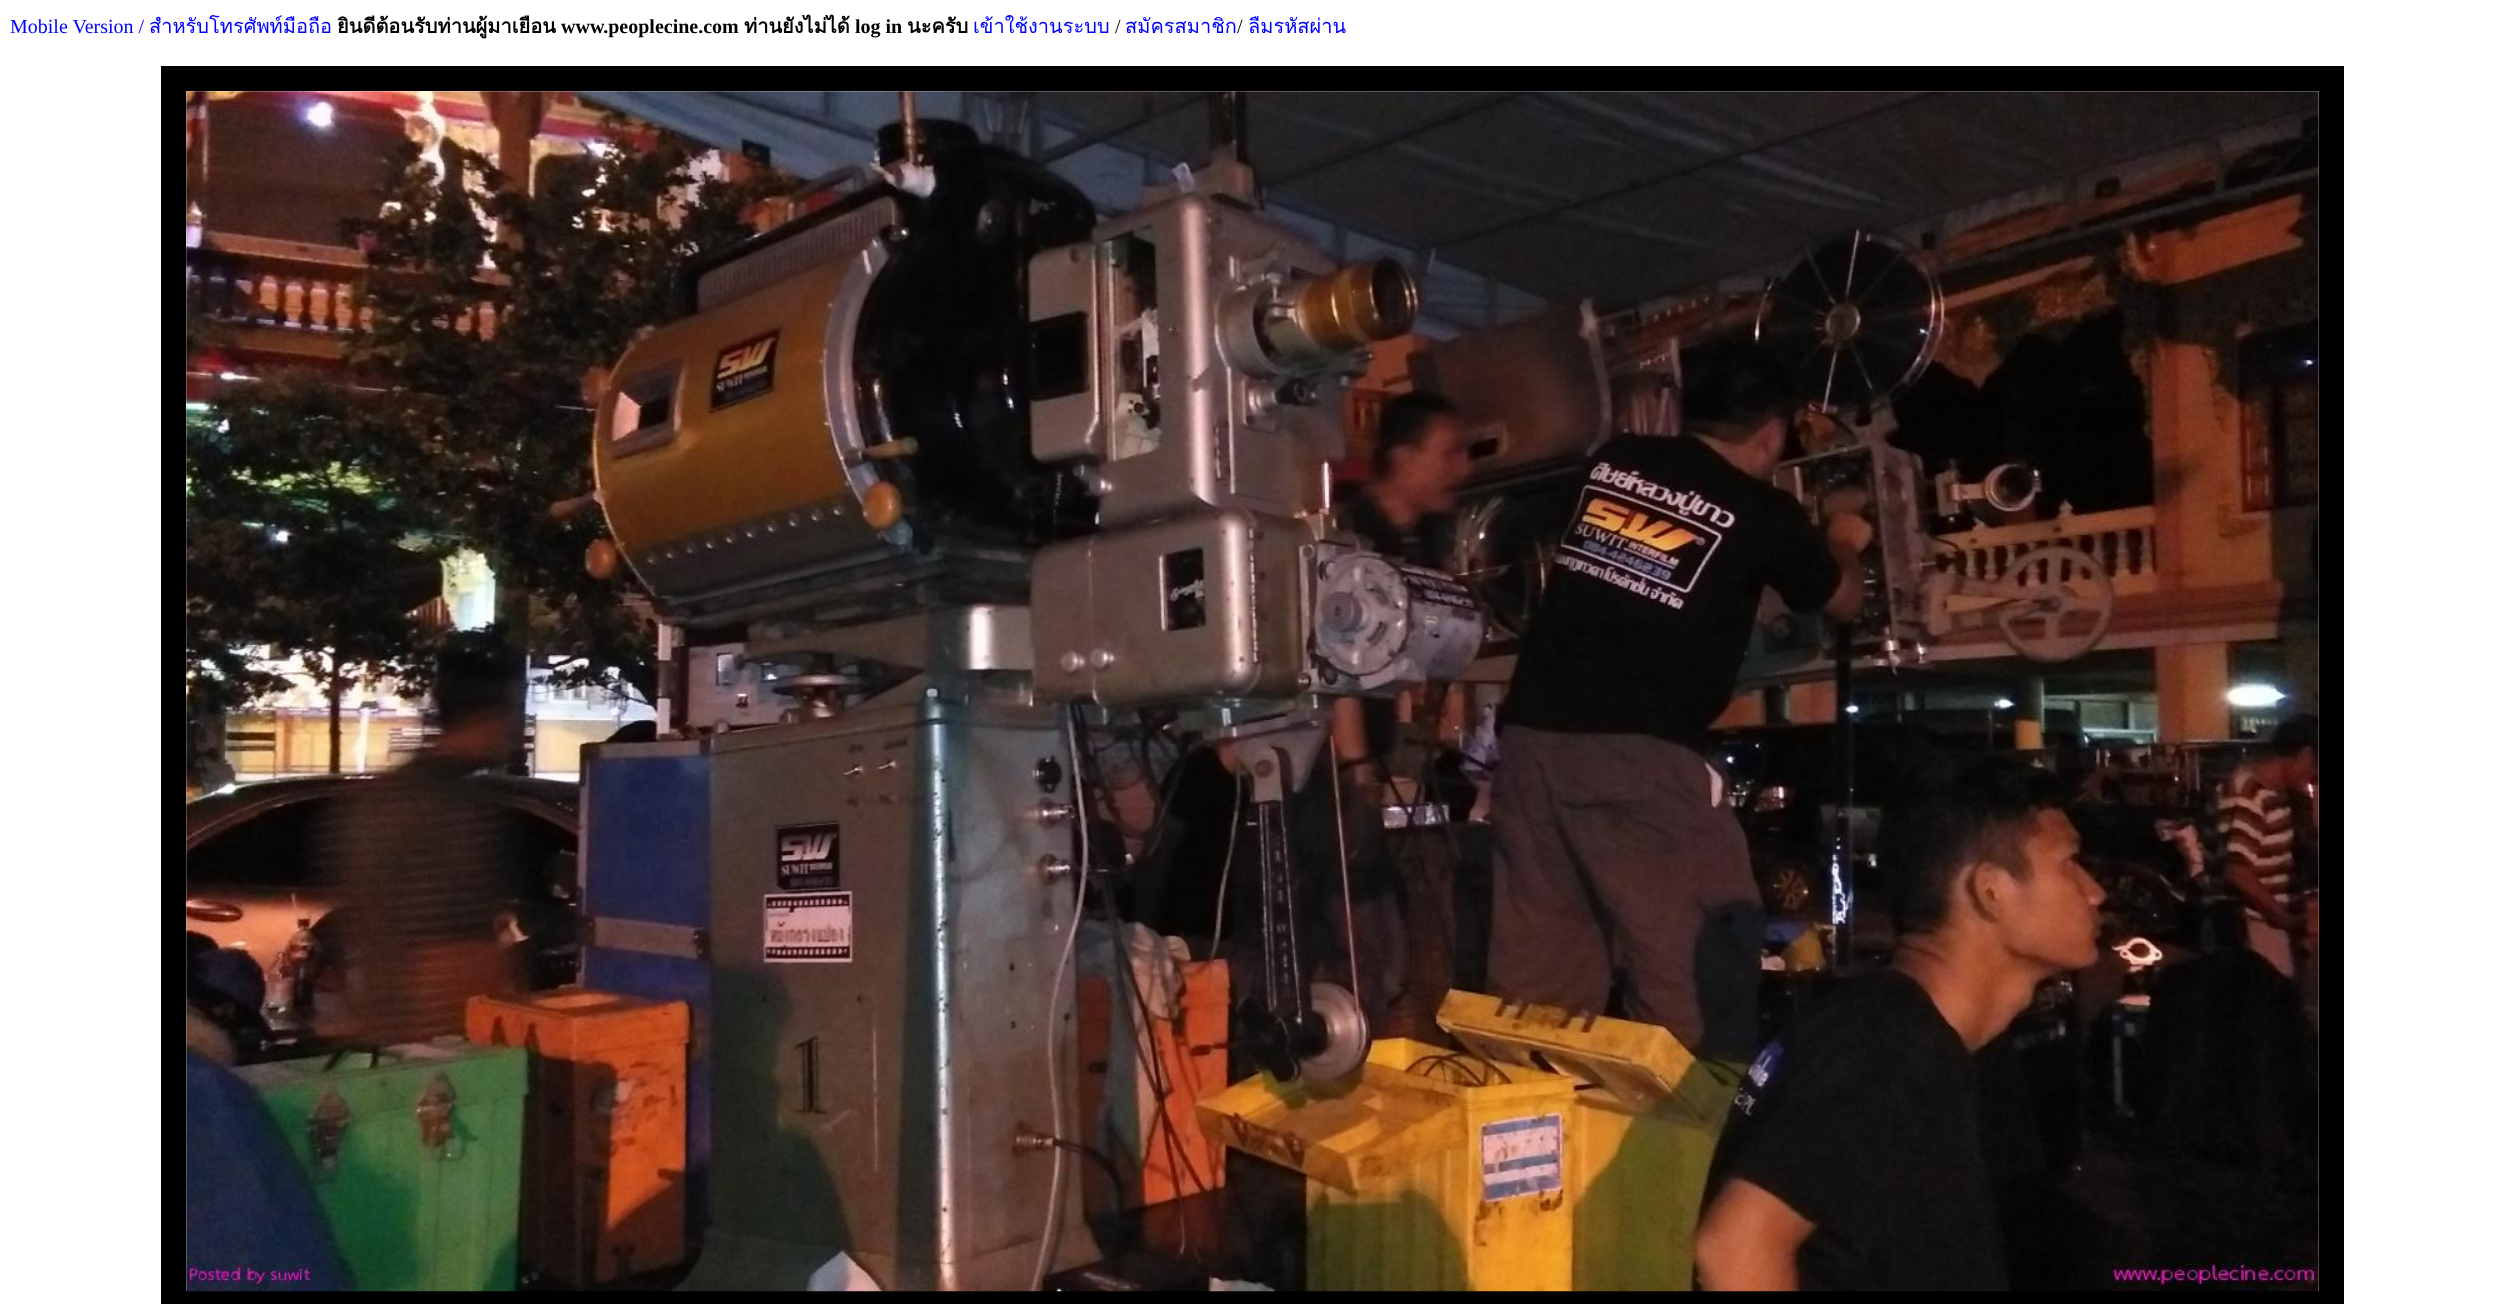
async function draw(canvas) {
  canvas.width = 2503;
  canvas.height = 1304;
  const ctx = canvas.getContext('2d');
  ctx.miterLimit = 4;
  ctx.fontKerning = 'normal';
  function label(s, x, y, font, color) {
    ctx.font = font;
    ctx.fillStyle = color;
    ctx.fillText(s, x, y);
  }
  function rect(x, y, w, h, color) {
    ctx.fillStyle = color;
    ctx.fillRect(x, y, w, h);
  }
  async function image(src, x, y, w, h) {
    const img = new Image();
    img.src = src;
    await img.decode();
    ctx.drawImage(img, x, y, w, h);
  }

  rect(0, 0, 2503, 1304, '#fff');
  label('Mobile Version /', 10, 33, '20px Liberation Serif', '#00f');
  label('สำหรับโทรศัพท์มือถือ', 149, 33, '20px Loma', '#00f');
  label('ยินดีต้อนรับท่านผู้มาเยือน', 337, 33, 'bold 20px Loma', '#000');
  label('www.peoplecine.com', 561, 33, 'bold 20px Liberation Serif', '#000');
  label('ท่านยังไม่ได้', 744, 33, 'bold 20px Loma', '#000');
  label('log in', 855, 33, 'bold 20px Liberation Serif', '#000');
  label('นะครับ', 907, 33, 'bold 20px Loma', '#000');
  label('เข้าใช้งานระบบ', 973, 33, '20px Loma', '#00f');
  label('/', 1115, 33, '20px Liberation Serif', '#000');
  label('สมัครสมาชิก', 1125, 33, '20px Loma', '#00f');
  label('/', 1237, 33, '20px Liberation Serif', '#000');
  label('ลืมรหัสผ่าน', 1248, 33, '20px Loma', '#00f');
  ctx.strokeStyle = '#000';
  ctx.lineWidth = 25;
  ctx.strokeRect(173.5, 78.5, 2158, 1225);
  await image('assets/img1.png', 186, 91, 2133, 1201);
}

draw(document.querySelector('canvas'));
